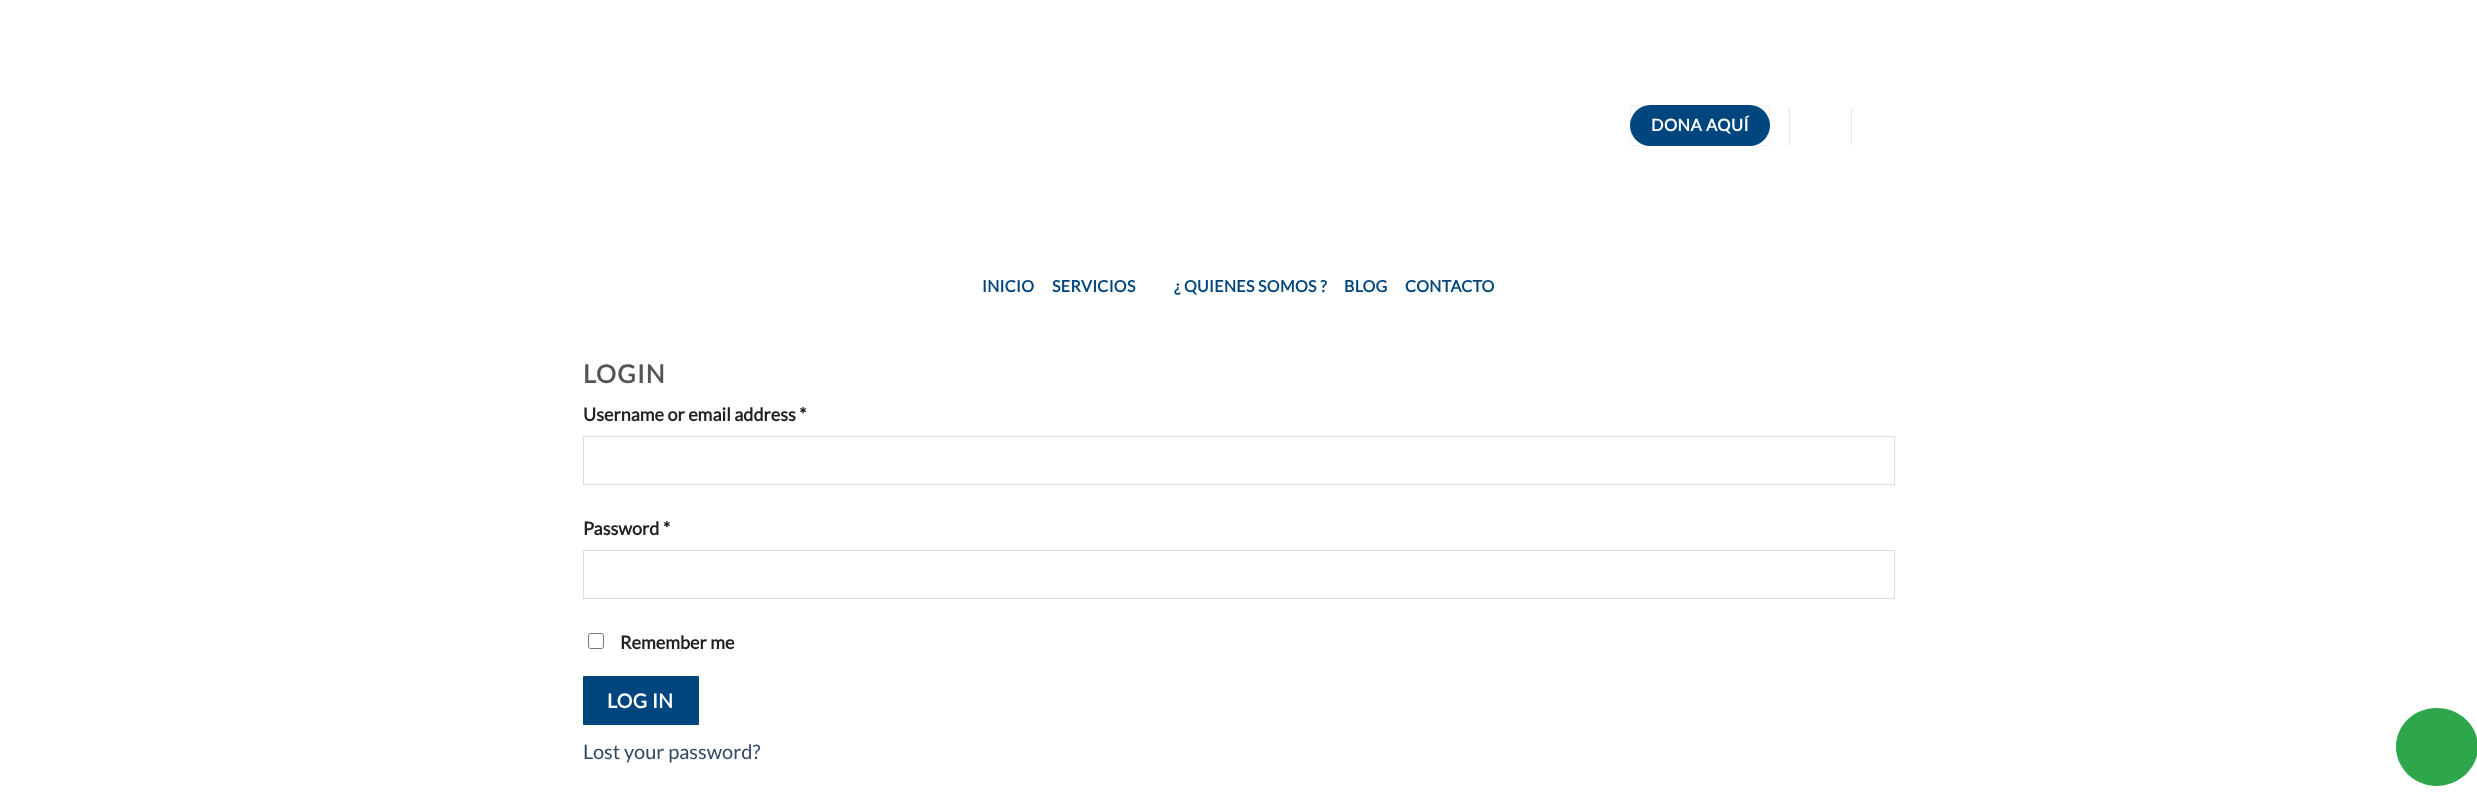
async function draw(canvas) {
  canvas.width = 2477;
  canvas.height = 802;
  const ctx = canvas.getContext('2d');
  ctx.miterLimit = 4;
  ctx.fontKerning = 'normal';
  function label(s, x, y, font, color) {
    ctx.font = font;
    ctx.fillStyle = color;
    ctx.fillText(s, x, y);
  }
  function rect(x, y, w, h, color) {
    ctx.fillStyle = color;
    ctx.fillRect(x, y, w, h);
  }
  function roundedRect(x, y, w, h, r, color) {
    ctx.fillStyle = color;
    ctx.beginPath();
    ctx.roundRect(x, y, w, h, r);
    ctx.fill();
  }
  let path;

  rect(0, 0, 2477, 802, '#fff');
  roundedRect(1630, 105, 140, 41, 20.5, '#00467e');
  ctx.strokeStyle = '#0000000d';
  ctx.strokeRect(1630.5, 105.5, 139, 40);
  ctx.letterSpacing = '0.5px';
  label('DONA AQUÍ', 1651, 131, 'bold 16.5px Lato', '#fff');
  rect(1789, 108, 1, 37, '#e6e6e6');
  rect(1851, 108, 1, 37, '#e6e6e6');
  ctx.letterSpacing = '0.3px';
  label('INICIO', 982, 292, 'bold 16px Lato', '#00467e');
  label('SERVICIOS', 1052, 292, 'bold 16px Lato', '#00467e');
  label('¿ QUIENES SOMOS ?', 1174, 292, 'bold 16px Lato', '#00467e');
  label('BLOG', 1344, 292, 'bold 16px Lato', '#00467e');
  label('CONTACTO', 1405, 292, 'bold 16px Lato', '#00467e');
  ctx.letterSpacing = '1.25px';
  label('LOGIN', 583, 383, 'bold 25px Lato', '#555');
  ctx.letterSpacing = '0px';
  label('Username or email address *', 583, 421, 'bold 18px Lato', '#222');
  ctx.strokeStyle = '#ddd';
  ctx.strokeRect(583.5, 436.5, 1311, 48);
  label('Password *', 583, 535, 'bold 18px Lato', '#222');
  ctx.strokeRect(583.5, 550.5, 1311, 48);
  ctx.beginPath();
  ctx.roundRect(588.5, 633.5, 15, 15, 2);
  ctx.strokeStyle = '#767676';
  ctx.stroke();
  label('Remember me', 620, 649, 'bold 18px Lato', '#222');
  ctx.fillStyle = '#00467e';
  ctx.beginPath();
  ctx.rect(583.5, 676.5, 115, 48);
  ctx.fill();
  ctx.strokeStyle = '#004378';
  ctx.stroke();
  ctx.letterSpacing = '0.5px';
  label('LOG IN', 607, 708, 'bold 19.5px Lato', '#fff');
  ctx.letterSpacing = '0px';
  label('Lost your password?', 583, 759, '20px Lato', '#334862');
  ctx.fillStyle = '#2ea64c';
  path = new Path2D('M2437 708C2414 708 2396 725 2396 747C2396 768 2414 786 2437 786C2459 786 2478 768 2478 747C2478 725 2459 708 2437 708Z');
  ctx.fill(path);
}

draw(document.querySelector('canvas'));
